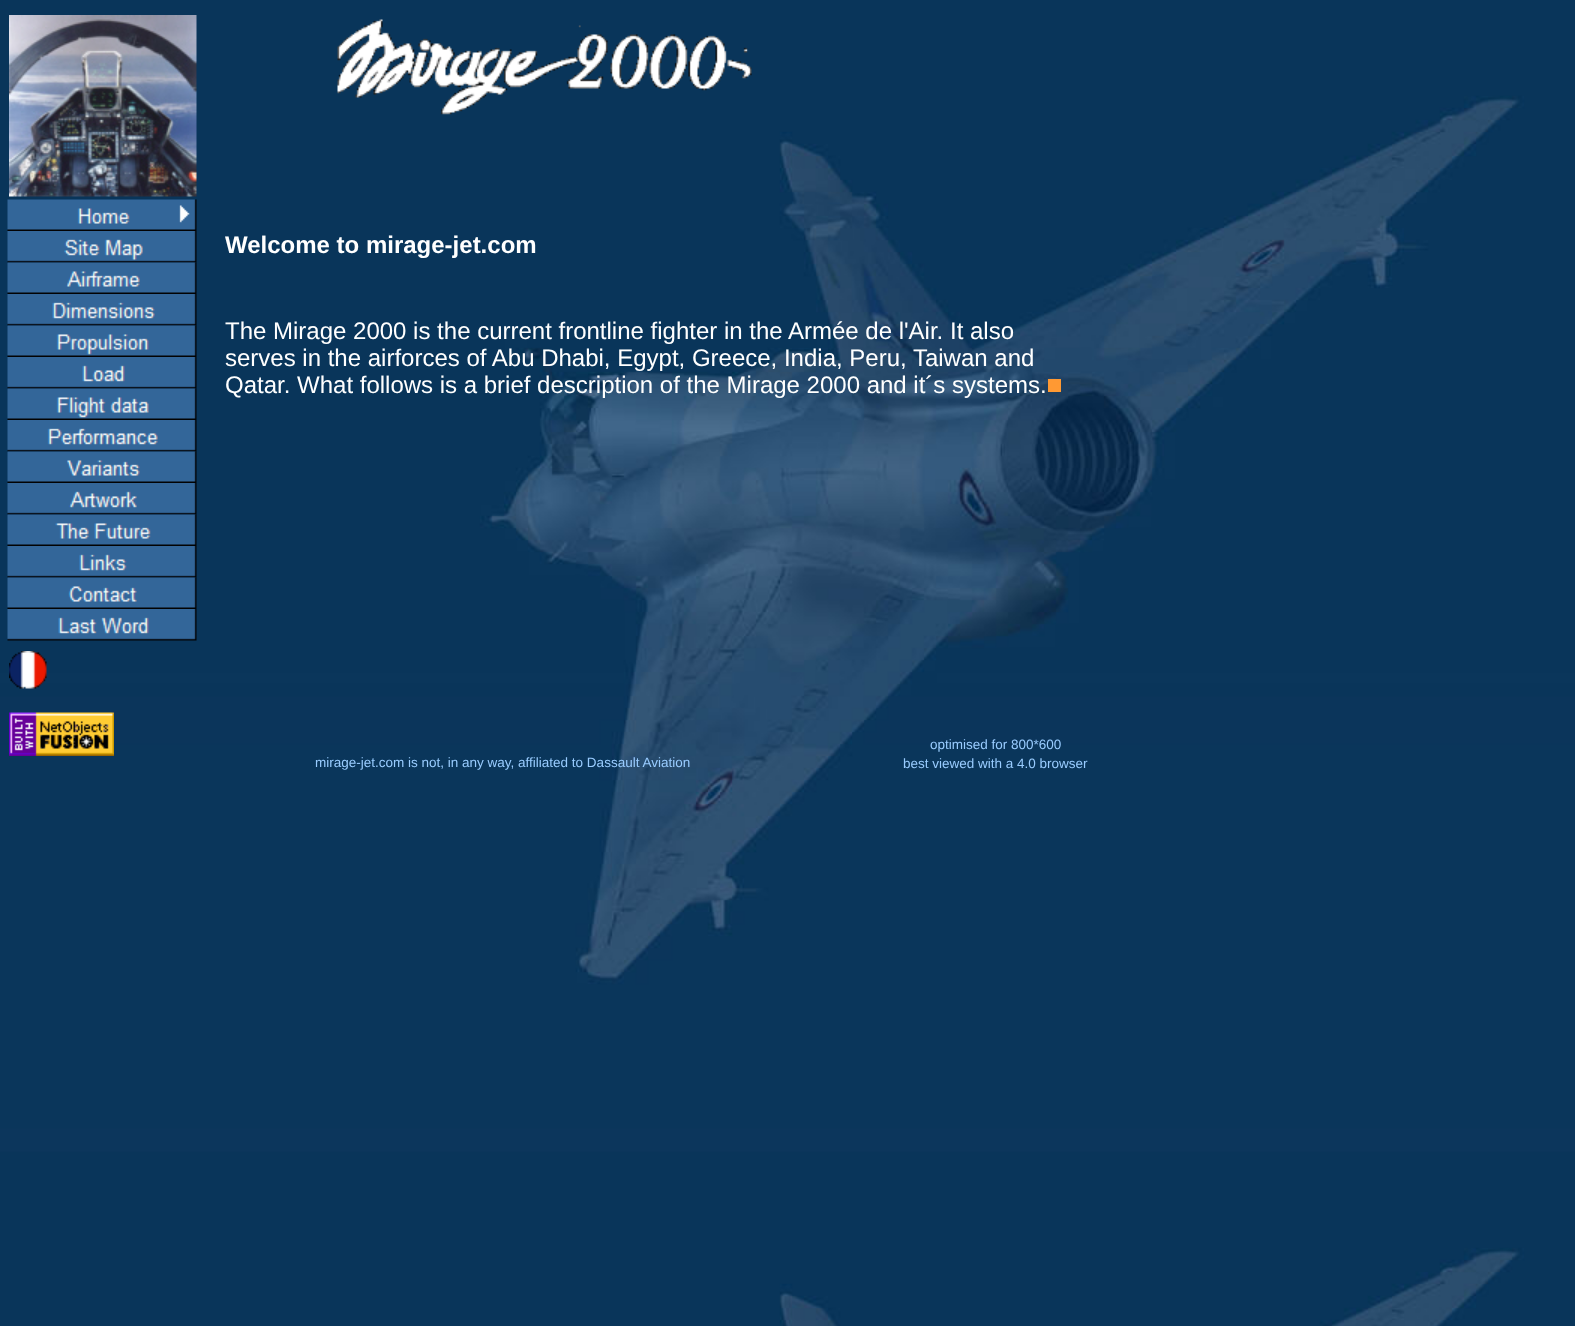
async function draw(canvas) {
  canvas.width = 1575;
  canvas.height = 1326;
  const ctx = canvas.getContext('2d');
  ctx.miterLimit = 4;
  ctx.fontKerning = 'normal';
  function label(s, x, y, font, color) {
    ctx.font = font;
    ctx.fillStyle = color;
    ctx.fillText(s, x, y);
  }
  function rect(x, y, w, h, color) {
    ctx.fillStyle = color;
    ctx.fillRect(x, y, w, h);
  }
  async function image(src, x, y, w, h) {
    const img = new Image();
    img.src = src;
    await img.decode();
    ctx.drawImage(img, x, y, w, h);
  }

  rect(0, 0, 1575, 1326, '#fff');
  await image('assets/img1.png', 0, 0, 1575, 1326);
  await image('assets/img2.png', 9, 15, 188, 182);
  await image('assets/img3.png', 337, 19, 415, 96);
  await image('assets/img4.png', 7, 199, 190, 32);
  await image('assets/img5.png', 7, 231, 190, 32);
  await image('assets/img6.png', 7, 262, 190, 32);
  await image('assets/img7.png', 7, 294, 190, 32);
  await image('assets/img8.png', 7, 325, 190, 32);
  await image('assets/img9.png', 7, 357, 190, 32);
  await image('assets/img10.png', 7, 388, 190, 32);
  await image('assets/img11.png', 7, 420, 190, 32);
  await image('assets/img12.png', 7, 451, 190, 32);
  await image('assets/img13.png', 7, 483, 190, 32);
  await image('assets/img14.png', 7, 514, 190, 32);
  await image('assets/img15.png', 7, 546, 190, 32);
  await image('assets/img16.png', 7, 577, 190, 32);
  await image('assets/img17.png', 7, 609, 190, 32);
  label('Welcome to mirage-jet.com', 225, 253, 'bold 24px Liberation Sans', '#fff');
  label('The Mirage 2000 is the current frontline fighter in the Armée de l\'Air. It also', 225, 339, '24px Liberation Sans', '#fff');
  label('serves in the airforces of Abu Dhabi, Egypt, Greece, India, Peru, Taiwan and', 225, 366, '24px Liberation Sans', '#fff');
  label('Qatar. What follows is a brief description of the Mirage 2000 and it´s systems.', 225, 393, '24px Liberation Sans', '#fff');
  rect(1048, 379, 13, 13, '#f93');
  await image('assets/img18.png', 9, 651, 38, 38);
  await image('assets/img19.png', 9, 712, 105, 44);
  label('optimised for 800*600', 930, 749, '13.5px Liberation Sans', '#9cf');
  label('mirage-jet.com is not, in any way, affiliated to Dassault Aviation', 315, 767, '13.5px Liberation Sans', '#9cf');
  label('best viewed with a 4.0 browser', 903, 768, '13.5px Liberation Sans', '#9cf');
}

draw(document.querySelector('canvas'));
